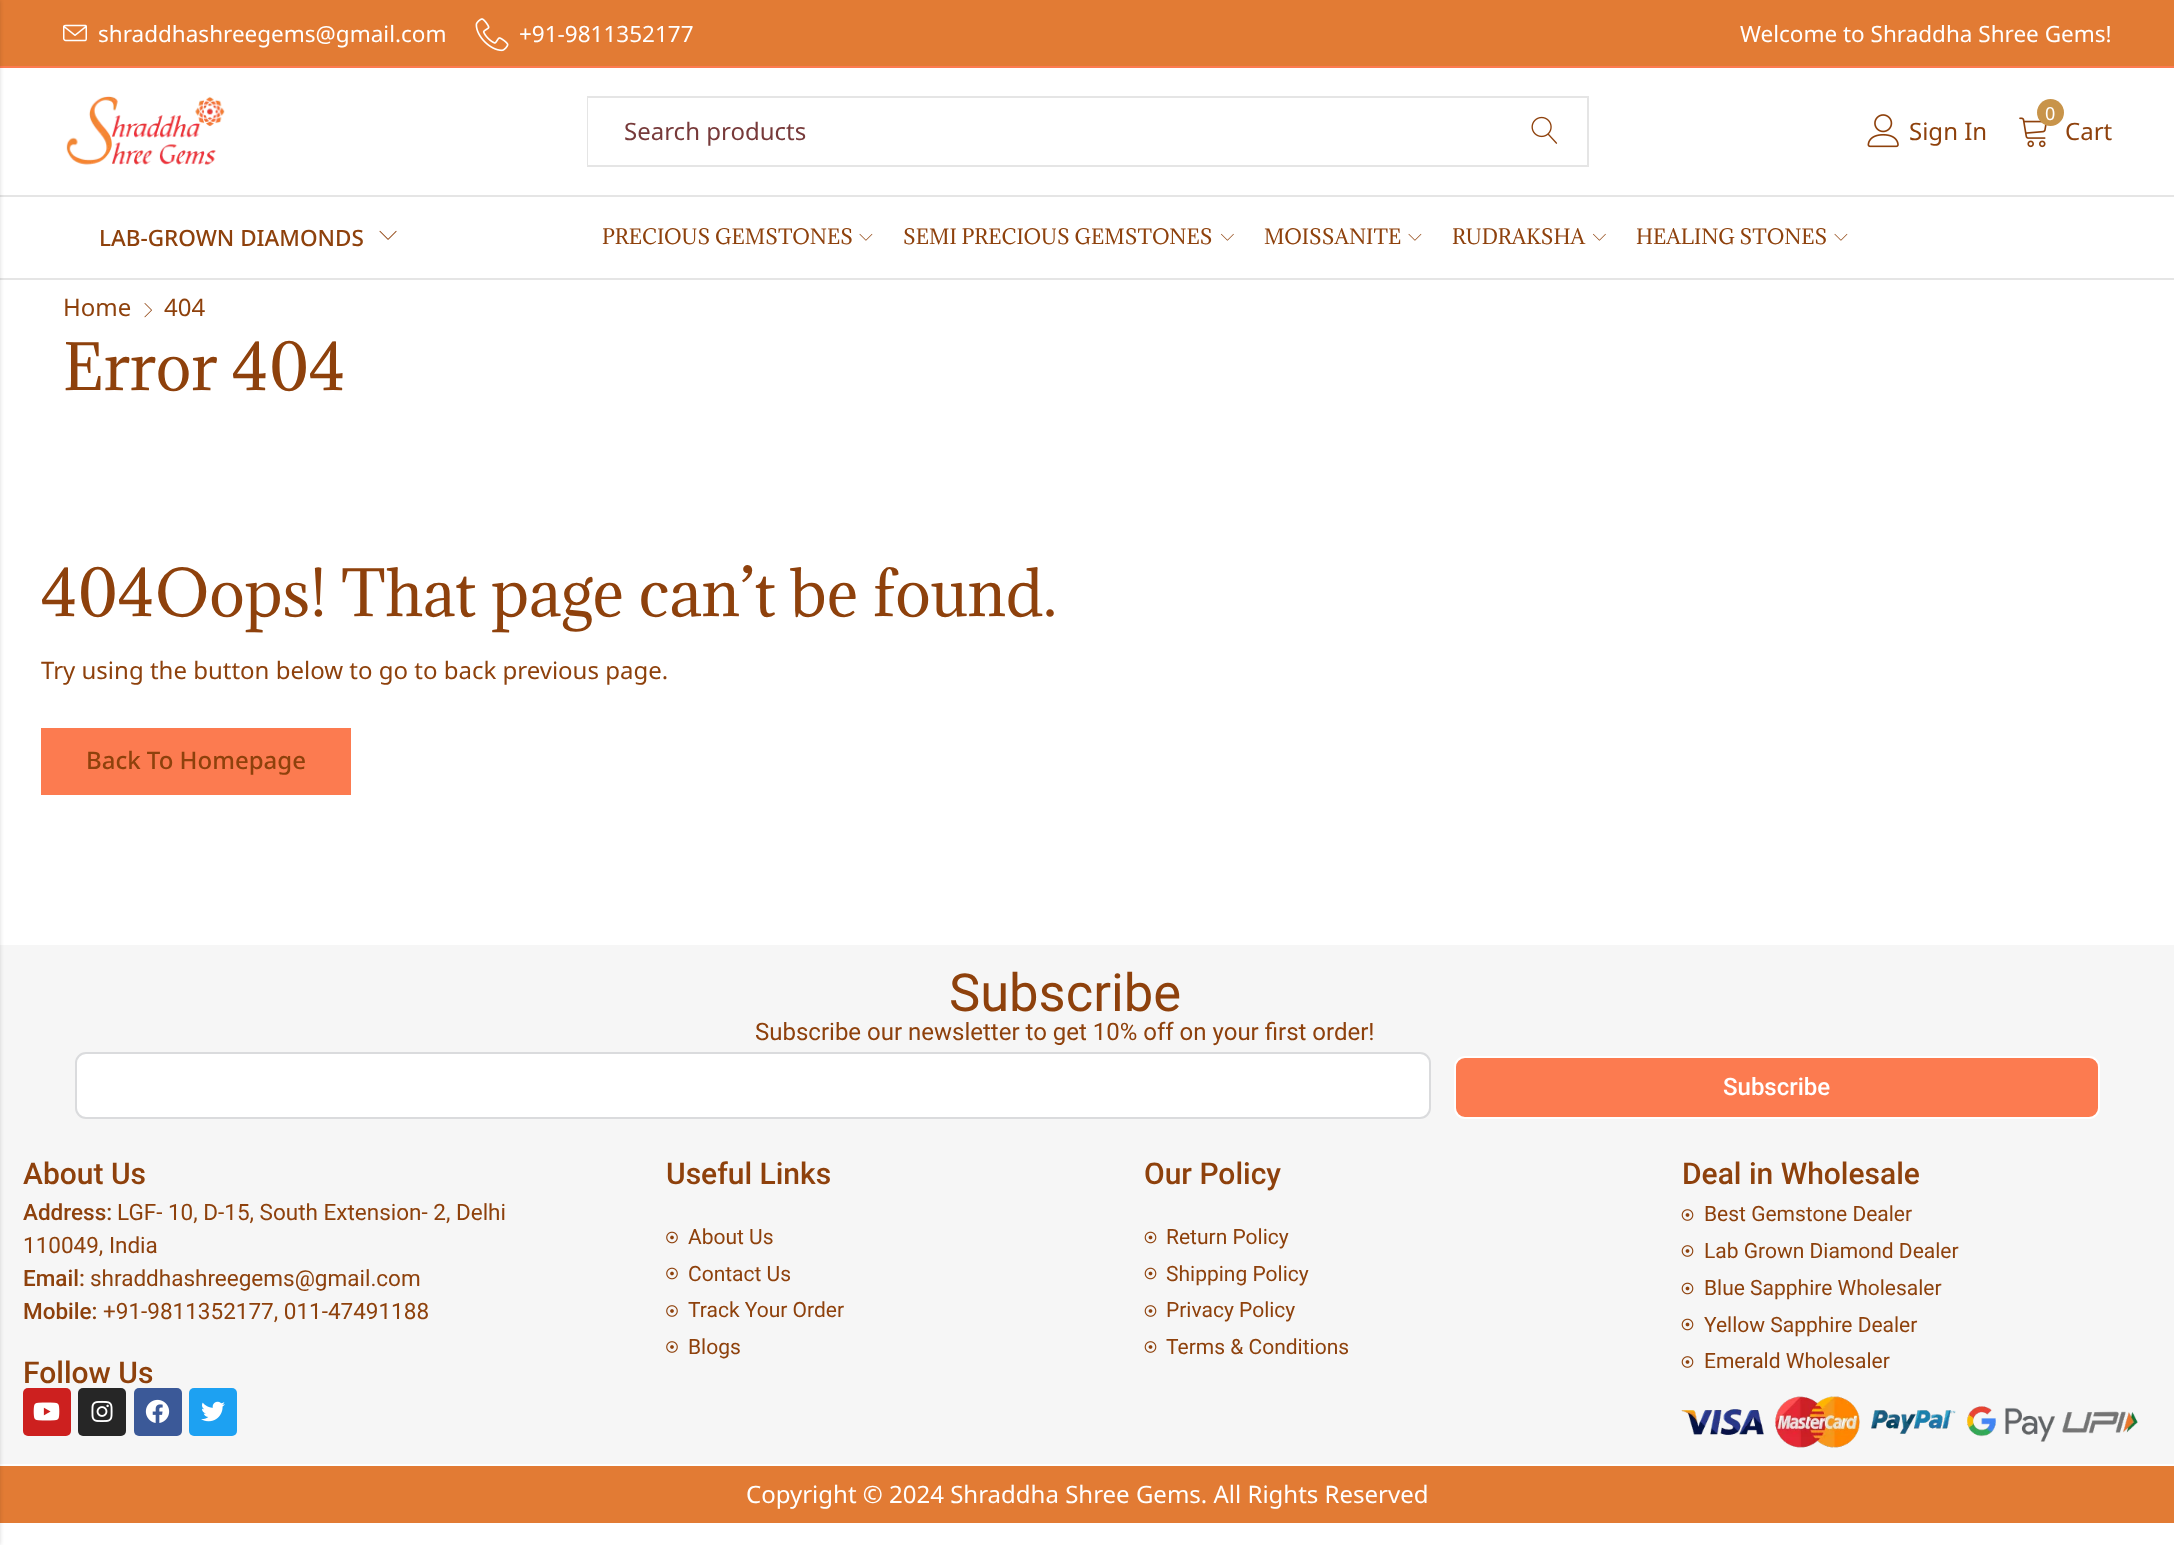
async function draw(canvas) {
  canvas.width = 2174;
  canvas.height = 1545;
  const ctx = canvas.getContext('2d');
  ctx.miterLimit = 4;
  ctx.fontKerning = 'normal';
  function label(s, x, y, font, color) {
    ctx.font = font;
    ctx.fillStyle = color;
    ctx.fillText(s, x, y);
  }
  function rect(x, y, w, h, color) {
    ctx.fillStyle = color;
    ctx.fillRect(x, y, w, h);
  }
  function roundedRect(x, y, w, h, r, color) {
    ctx.fillStyle = color;
    ctx.beginPath();
    ctx.roundRect(x, y, w, h, r);
    ctx.fill();
  }
  async function image(src, x, y, w, h) {
    const img = new Image();
    img.src = src;
    await img.decode();
    ctx.drawImage(img, x, y, w, h);
  }

  rect(0, 0, 2174, 1545, '#fff');
  rect(0, 0, 2174, 66, '#e27b34');
  rect(0, 66, 2174, 2, '#fc7b50');
  rect(0, 195, 2174, 2, '#e5e5e5');
  rect(0, 278, 2174, 2, '#e5e5e5');
  rect(0, 945, 2174, 519, '#f6f6f6');
  rect(0, 1466, 2174, 57, '#e27b34');
  ctx.fillStyle = '#00000026';
  ctx.filter = 'blur(2px)';
  ctx.beginPath();
  ctx.rect(-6, 0, 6, 1545);
  ctx.fill();
  ctx.filter = 'none';
  await image('assets/img1.png', 63, 24, 24, 18);
  label('shraddhashreegems@gmail.com', 98, 42, '22.5px Noto Sans', '#fff');
  await image('assets/img2.png', 475, 18, 34, 34);
  label('+91-9811352177', 519, 42, '22.5px Noto Sans', '#fff');
  label('Welcome to Shraddha Shree Gems!', 1740, 42, '22.5px Noto Sans', '#fff');
  await image('assets/img3.png', 66, 96, 159, 69);
  ctx.strokeStyle = '#e5e5e5';
  ctx.lineWidth = 2;
  ctx.strokeRect(588, 97, 1000, 69);
  rect(588, 98, 1, 67, '#fff');
  label('Search products', 624, 140, '24px Noto Sans', '#773a3a');
  await image('assets/img4.png', 1531, 116, 27, 28);
  await image('assets/img5.png', 1867, 114, 32, 34);
  label('Sign In', 1909, 140, '24px Noto Sans', '#8e410c');
  await image('assets/img6.png', 2019, 117, 28, 31);
  ctx.fillStyle = '#c8944a';
  ctx.beginPath();
  ctx.arc(2050.5, 112.5, 13.5, 0, 2 * Math.PI);
  ctx.fill();
  label('0', 2045, 120, '18px Noto Sans', '#fff');
  label('Cart', 2065, 140, '24px Noto Sans', '#8e410c');
  label('LAB-GROWN DIAMONDS', 99, 246, '500 22.5px Noto Sans', '#8e410c');
  await image('assets/img7.png', 379, 230, 18, 10);
  label('PRECIOUS GEMSTONES', 602, 244, '19.5px Adamina', '#8e410c');
  await image('assets/img8.png', 859, 233, 14, 8);
  label('SEMI PRECIOUS GEMSTONES', 903, 244, '19.5px Adamina', '#8e410c');
  await image('assets/img9.png', 1221, 233, 13, 8);
  label('MOISSANITE', 1264, 244, '19.5px Adamina', '#8e410c');
  await image('assets/img8.png', 1408, 233, 14, 8);
  label('RUDRAKSHA', 1452, 244, '19.5px Adamina', '#8e410c');
  await image('assets/img9.png', 1593, 233, 13, 8);
  label('HEALING STONES', 1636, 244, '19.5px Adamina', '#8e410c');
  await image('assets/img8.png', 1834, 233, 14, 8);
  label('Home', 63, 316, '24px Noto Sans', '#8e410c');
  await image('assets/img10.png', 144, 303, 8, 15);
  label('404', 164, 316, '24px Noto Sans', '#8e410c');
  label('Error 404', 63, 390, '60px Adamina', '#8e410c');
  label('404Oops! That page can’t be found.', 41, 616, '60px Adamina', '#8e410c');
  label('Try using the button below to go to back previous page.', 41, 679, '24px Noto Sans', '#8e410c');
  rect(41, 728, 310, 67, '#fc7b50');
  label('Back To Homepage', 86, 769, '500 24px Noto Sans', '#8e410c');
  label('Subscribe', 949, 1011, '52.5px Roboto', '#8e410c');
  label('Subscribe our newsletter to get 10% off on your first order!', 755, 1040, '24px Roboto', '#8e410c');
  ctx.fillStyle = '#fff';
  ctx.beginPath();
  ctx.roundRect(76, 1053, 1354, 65, 10);
  ctx.fill();
  ctx.strokeStyle = '#dadbdd';
  ctx.stroke();
  ctx.fillStyle = '#fc7b50';
  ctx.beginPath();
  ctx.roundRect(1455, 1057, 644, 61, 10);
  ctx.fill();
  ctx.strokeStyle = '#fff';
  ctx.stroke();
  label('Subscribe', 1723, 1095, '500 24px Roboto', '#fff');
  label('About Us', 23, 1184, '500 30px Roboto', '#8e410c');
  label('Address:', 23, 1220, '500 22.5px Roboto', '#8e410c');
  label('LGF- 10, D-15, South Extension- 2, Delhi', 117, 1220, '22.5px Roboto', '#8e410c');
  label('110049, India', 23, 1253, '22.5px Roboto', '#8e410c');
  label('Email:', 23, 1286, '500 22.5px Roboto', '#8e410c');
  label('shraddhashreegems@gmail.com', 90, 1286, '22.5px Roboto', '#8e410c');
  label('Mobile:', 23, 1319, '500 22.5px Roboto', '#8e410c');
  label('+91-9811352177, 011-47491188', 103, 1319, '22.5px Roboto', '#8e410c');
  label('Follow Us', 23, 1383, '500 30px Roboto', '#8e410c');
  roundedRect(23, 1388, 48, 48, 5, '#cd201f');
  await image('assets/img11.png', 33, 1402, 27, 19);
  roundedRect(78, 1388, 48, 48, 5, '#262626');
  await image('assets/img12.png', 91, 1400, 22, 22);
  roundedRect(134, 1388, 48, 48, 5, '#3b5998');
  await image('assets/img13.png', 145, 1399, 25, 24);
  roundedRect(189, 1388, 48, 48, 5, '#1da1f2');
  await image('assets/img14.png', 201, 1401, 24, 21);
  label('Useful Links', 666, 1184, '500 30px Roboto', '#8e410c');
  await image('assets/img15.png', 666, 1231, 12, 13);
  label('About Us', 688, 1244, '21px Roboto', '#8e410c');
  await image('assets/img15.png', 666, 1267, 12, 13);
  label('Contact Us', 688, 1281, '21px Roboto', '#8e410c');
  await image('assets/img16.png', 666, 1305, 12, 12);
  label('Track Your Order', 688, 1317, '21px Roboto', '#8e410c');
  await image('assets/img16.png', 666, 1341, 12, 12);
  label('Blogs', 688, 1354, '21px Roboto', '#8e410c');
  label('Our Policy', 1144, 1184, '500 30px Roboto', '#8e410c');
  await image('assets/img17.png', 1144, 1231, 13, 13);
  label('Return Policy', 1166, 1244, '21px Roboto', '#8e410c');
  await image('assets/img17.png', 1144, 1267, 13, 13);
  label('Shipping Policy', 1166, 1281, '21px Roboto', '#8e410c');
  await image('assets/img18.png', 1144, 1305, 13, 12);
  label('Privacy Policy', 1166, 1317, '21px Roboto', '#8e410c');
  await image('assets/img18.png', 1144, 1341, 13, 12);
  label('Terms & Conditions', 1166, 1354, '21px Roboto', '#8e410c');
  label('Deal in Wholesale', 1682, 1184, '500 30px Roboto', '#8e410c');
  await image('assets/img18.png', 1681, 1209, 13, 12);
  label('Best Gemstone Dealer', 1704, 1221, '21px Roboto', '#8e410c');
  await image('assets/img18.png', 1681, 1245, 13, 12);
  label('Lab Grown Diamond Dealer', 1704, 1258, '21px Roboto', '#8e410c');
  await image('assets/img17.png', 1681, 1282, 13, 13);
  label('Blue Sapphire Wholesaler', 1704, 1295, '21px Roboto', '#8e410c');
  await image('assets/img17.png', 1681, 1318, 13, 13);
  label('Yellow Sapphire Dealer', 1704, 1332, '21px Roboto', '#8e410c');
  await image('assets/img18.png', 1681, 1356, 13, 12);
  label('Emerald Wholesaler', 1704, 1368, '21px Roboto', '#8e410c');
  await image('assets/img19.png', 1681, 1396, 457, 52);
  label('Copyright © 2024 Shraddha Shree Gems. All Rights Reserved', 746, 1503, '24px Noto Sans', '#fff');
}

draw(document.querySelector('canvas'));
